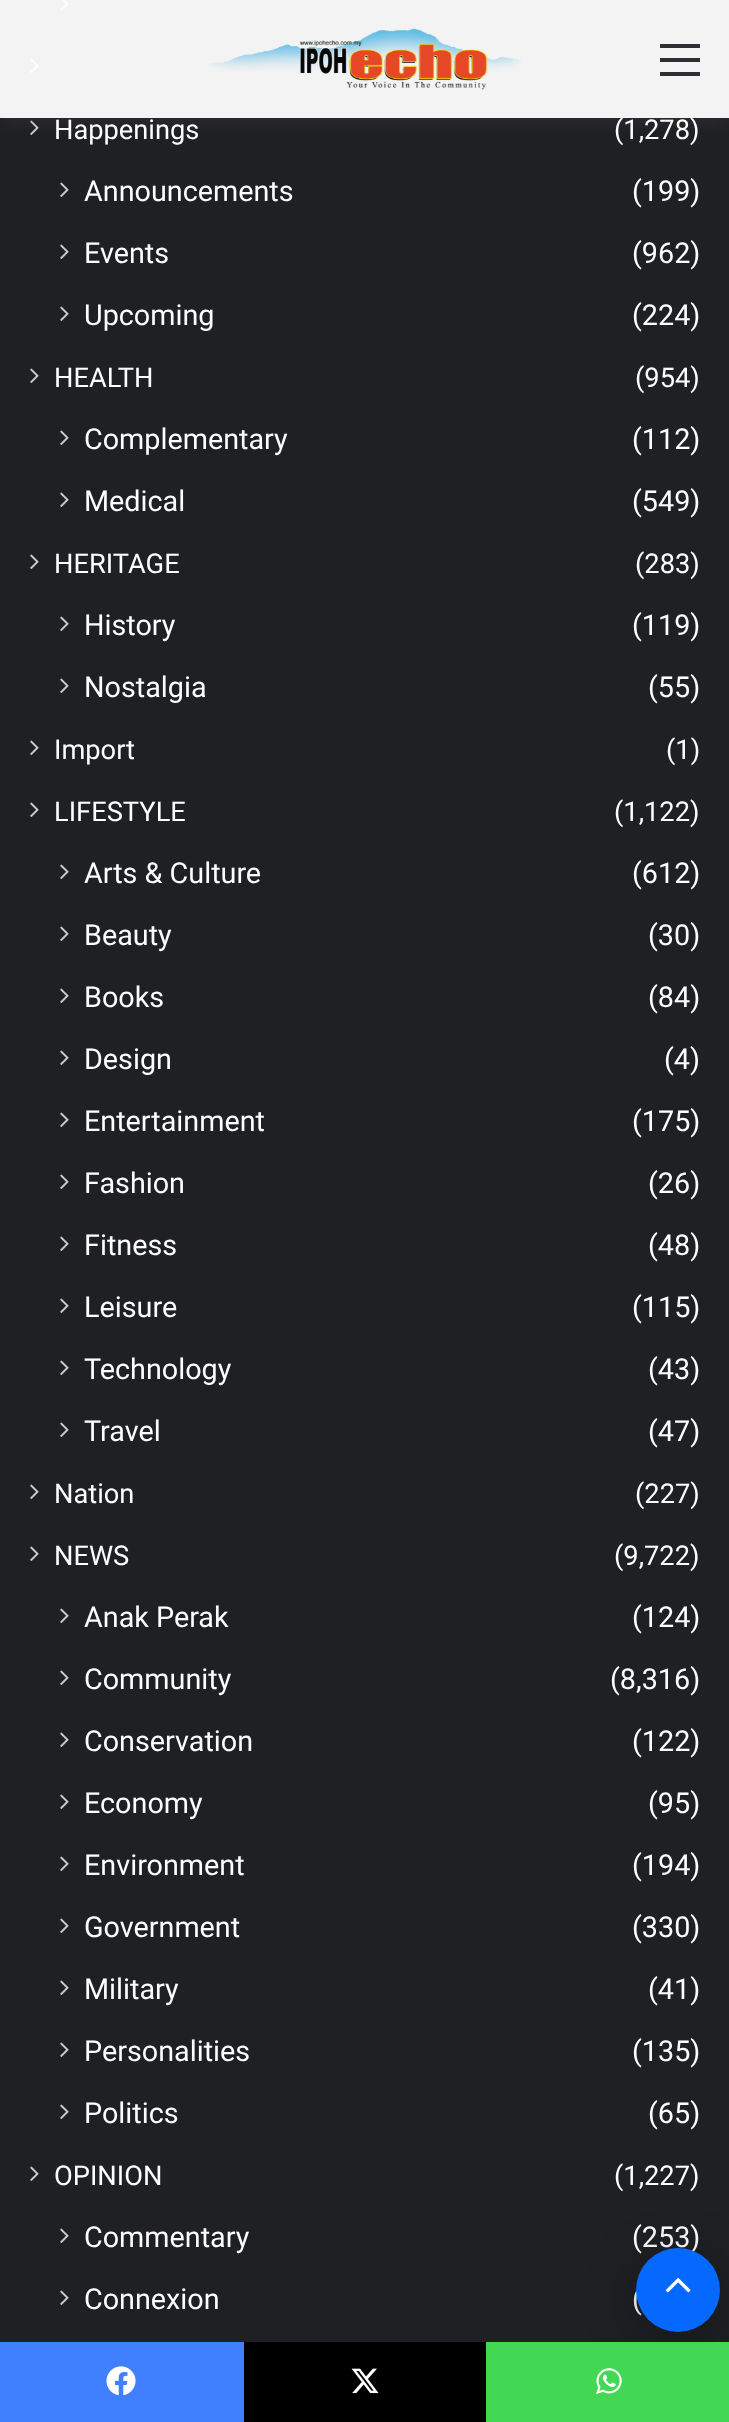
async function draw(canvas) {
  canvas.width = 729;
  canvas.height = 2422;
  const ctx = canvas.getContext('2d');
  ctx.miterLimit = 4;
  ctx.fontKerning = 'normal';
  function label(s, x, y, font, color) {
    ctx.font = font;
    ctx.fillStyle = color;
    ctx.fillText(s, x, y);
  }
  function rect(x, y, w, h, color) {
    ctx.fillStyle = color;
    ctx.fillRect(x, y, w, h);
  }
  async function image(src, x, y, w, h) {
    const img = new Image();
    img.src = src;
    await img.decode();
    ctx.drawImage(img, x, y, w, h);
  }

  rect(0, 0, 729, 2422, '#1f2024');
  await image('assets/img2.png', 60, 0, 9, 11);
  await image('assets/img3.png', 30, 58, 9, 15);
  await image('assets/img3.png', 30, 120, 9, 15);
  ctx.save();
  ctx.beginPath();
  ctx.rect(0, 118, 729, 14);
  ctx.clip();
  ctx.fillStyle = '#63636333';
  ctx.filter = 'blur(8px)';
  ctx.beginPath();
  ctx.rect(0, 4, 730, 118);
  ctx.fill();
  ctx.filter = 'none';
  ctx.restore();
  label('(1,278)', 614, 139, '27.25px Roboto', '#fdfdfd');
  rect(0, 0, 729, 118, '#fffffff2');
  await image('assets/img1.png', 209, 28, 312, 62);
  rect(660, 58, 40, 4, '#2c2f34');
  rect(660, 44, 40, 4, '#2c2f34');
  rect(660, 72, 40, 4, '#2c2f34');
  label('Happenings', 54, 139, '27.25px Roboto', '#fdfdfd');
  await image('assets/img3.png', 60, 182, 9, 15);
  label('Announcements', 84, 201, '28.75px Roboto', '#fdfdfd');
  label('(199)', 632, 201, '28.75px Roboto', '#fdfdfd');
  await image('assets/img3.png', 60, 244, 9, 15);
  label('Events', 84, 263, '28.75px Roboto', '#fdfdfd');
  label('(962)', 632, 263, '28.75px Roboto', '#fdfdfd');
  await image('assets/img3.png', 60, 306, 9, 15);
  label('Upcoming', 84, 325, '28.75px Roboto', '#fdfdfd');
  label('(224)', 632, 325, '28.75px Roboto', '#fdfdfd');
  await image('assets/img3.png', 30, 368, 9, 15);
  label('HEALTH', 54, 387, '27.25px Roboto', '#fdfdfd');
  label('(954)', 635, 387, '27.25px Roboto', '#fdfdfd');
  await image('assets/img3.png', 60, 430, 9, 15);
  label('Complementary', 84, 449, '28.75px Roboto', '#fdfdfd');
  label('(112)', 632, 449, '28.75px Roboto', '#fdfdfd');
  await image('assets/img3.png', 60, 492, 9, 15);
  label('Medical', 84, 511, '28.75px Roboto', '#fdfdfd');
  label('(549)', 632, 511, '28.75px Roboto', '#fdfdfd');
  await image('assets/img3.png', 30, 554, 9, 15);
  label('HERITAGE', 54, 573, '27.25px Roboto', '#fdfdfd');
  label('(283)', 635, 573, '27.25px Roboto', '#fdfdfd');
  await image('assets/img3.png', 60, 616, 9, 15);
  label('History', 84, 635, '28.75px Roboto', '#fdfdfd');
  label('(119)', 632, 635, '28.75px Roboto', '#fdfdfd');
  await image('assets/img3.png', 60, 678, 9, 15);
  label('Nostalgia', 84, 697, '28.75px Roboto', '#fdfdfd');
  label('(55)', 648, 697, '28.75px Roboto', '#fdfdfd');
  await image('assets/img3.png', 30, 740, 9, 15);
  label('Import', 54, 759, '27.25px Roboto', '#fdfdfd');
  label('(1)', 666, 759, '27.25px Roboto', '#fdfdfd');
  await image('assets/img3.png', 30, 802, 9, 15);
  label('LIFESTYLE', 54, 821, '27.25px Roboto', '#fdfdfd');
  label('(1,122)', 614, 821, '27.25px Roboto', '#fdfdfd');
  await image('assets/img3.png', 60, 864, 9, 15);
  label('Arts & Culture', 84, 883, '28.75px Roboto', '#fdfdfd');
  label('(612)', 632, 883, '28.75px Roboto', '#fdfdfd');
  await image('assets/img3.png', 60, 926, 9, 15);
  label('Beauty', 84, 945, '28.75px Roboto', '#fdfdfd');
  label('(30)', 648, 945, '28.75px Roboto', '#fdfdfd');
  await image('assets/img3.png', 60, 988, 9, 15);
  label('Books', 84, 1007, '28.75px Roboto', '#fdfdfd');
  label('(84)', 648, 1007, '28.75px Roboto', '#fdfdfd');
  await image('assets/img3.png', 60, 1050, 9, 15);
  label('Design', 84, 1069, '28.75px Roboto', '#fdfdfd');
  label('(4)', 664, 1069, '28.75px Roboto', '#fdfdfd');
  await image('assets/img3.png', 60, 1112, 9, 15);
  label('Entertainment', 84, 1131, '28.75px Roboto', '#fdfdfd');
  label('(175)', 632, 1131, '28.75px Roboto', '#fdfdfd');
  await image('assets/img3.png', 60, 1174, 9, 15);
  label('Fashion', 84, 1193, '28.75px Roboto', '#fdfdfd');
  label('(26)', 648, 1193, '28.75px Roboto', '#fdfdfd');
  await image('assets/img3.png', 60, 1236, 9, 15);
  label('Fitness', 84, 1255, '28.75px Roboto', '#fdfdfd');
  label('(48)', 648, 1255, '28.75px Roboto', '#fdfdfd');
  await image('assets/img3.png', 60, 1298, 9, 15);
  label('Leisure', 84, 1317, '28.75px Roboto', '#fdfdfd');
  label('(115)', 632, 1317, '28.75px Roboto', '#fdfdfd');
  await image('assets/img3.png', 60, 1360, 9, 15);
  label('Technology', 84, 1379, '28.75px Roboto', '#fdfdfd');
  label('(43)', 648, 1379, '28.75px Roboto', '#fdfdfd');
  await image('assets/img3.png', 60, 1422, 9, 15);
  label('Travel', 84, 1441, '28.75px Roboto', '#fdfdfd');
  label('(47)', 648, 1441, '28.75px Roboto', '#fdfdfd');
  await image('assets/img3.png', 30, 1484, 9, 15);
  label('Nation', 54, 1503, '27.25px Roboto', '#fdfdfd');
  label('(227)', 635, 1503, '27.25px Roboto', '#fdfdfd');
  await image('assets/img3.png', 30, 1546, 9, 15);
  label('NEWS', 54, 1565, '27.25px Roboto', '#fdfdfd');
  label('(9,722)', 614, 1565, '27.25px Roboto', '#fdfdfd');
  await image('assets/img3.png', 60, 1608, 9, 15);
  label('Anak Perak', 84, 1627, '28.75px Roboto', '#fdfdfd');
  label('(124)', 632, 1627, '28.75px Roboto', '#fdfdfd');
  await image('assets/img3.png', 60, 1670, 9, 15);
  label('Community', 84, 1689, '28.75px Roboto', '#fdfdfd');
  label('(8,316)', 610, 1689, '28.75px Roboto', '#fdfdfd');
  await image('assets/img3.png', 60, 1732, 9, 15);
  label('Conservation', 84, 1751, '28.75px Roboto', '#fdfdfd');
  label('(122)', 632, 1751, '28.75px Roboto', '#fdfdfd');
  await image('assets/img3.png', 60, 1794, 9, 15);
  label('Economy', 84, 1813, '28.75px Roboto', '#fdfdfd');
  label('(95)', 648, 1813, '28.75px Roboto', '#fdfdfd');
  await image('assets/img3.png', 60, 1856, 9, 15);
  label('Environment', 84, 1875, '28.75px Roboto', '#fdfdfd');
  label('(194)', 632, 1875, '28.75px Roboto', '#fdfdfd');
  await image('assets/img3.png', 60, 1918, 9, 15);
  label('Government', 84, 1937, '28.75px Roboto', '#fdfdfd');
  label('(330)', 632, 1937, '28.75px Roboto', '#fdfdfd');
  await image('assets/img3.png', 60, 1980, 9, 15);
  label('Military', 84, 1999, '28.75px Roboto', '#fdfdfd');
  label('(41)', 648, 1999, '28.75px Roboto', '#fdfdfd');
  await image('assets/img3.png', 60, 2042, 9, 15);
  label('Personalities', 84, 2061, '28.75px Roboto', '#fdfdfd');
  label('(135)', 632, 2061, '28.75px Roboto', '#fdfdfd');
  await image('assets/img3.png', 60, 2104, 9, 15);
  label('Politics', 84, 2123, '28.75px Roboto', '#fdfdfd');
  label('(65)', 648, 2123, '28.75px Roboto', '#fdfdfd');
  await image('assets/img3.png', 30, 2166, 9, 15);
  label('OPINION', 54, 2185, '27.25px Roboto', '#fdfdfd');
  label('(1,227)', 614, 2185, '27.25px Roboto', '#fdfdfd');
  await image('assets/img3.png', 60, 2228, 9, 15);
  label('Commentary', 84, 2247, '28.75px Roboto', '#fdfdfd');
  label('(253)', 632, 2247, '28.75px Roboto', '#fdfdfd');
  await image('assets/img3.png', 60, 2290, 9, 15);
  label('Connexion', 84, 2309, '28.75px Roboto', '#fdfdfd');
  label('(', 632, 2309, '28.75px Roboto', '#fdfdfd');
  ctx.fillStyle = '#0000004d';
  ctx.filter = 'blur(25px)';
  ctx.beginPath();
  ctx.roundRect(636, 2258, 84, 84, 42);
  ctx.fill();
  ctx.filter = 'none';
  ctx.fillStyle = '#0669ff';
  ctx.beginPath();
  ctx.arc(678, 2290, 42, 0, 2 * Math.PI);
  ctx.fill();
  await image('assets/img4.png', 665, 2278, 26, 15);
  rect(0, 2342, 244, 80, '#4080ff');
  await image('assets/img5.png', 106, 2366, 30, 30);
  rect(244, 2342, 242, 80, '#000');
  await image('assets/img6.png', 351, 2368, 28, 26);
  rect(486, 2342, 243, 80, '#43d854');
  await image('assets/img7.png', 596, 2368, 26, 26);
}

draw(document.querySelector('canvas'));
